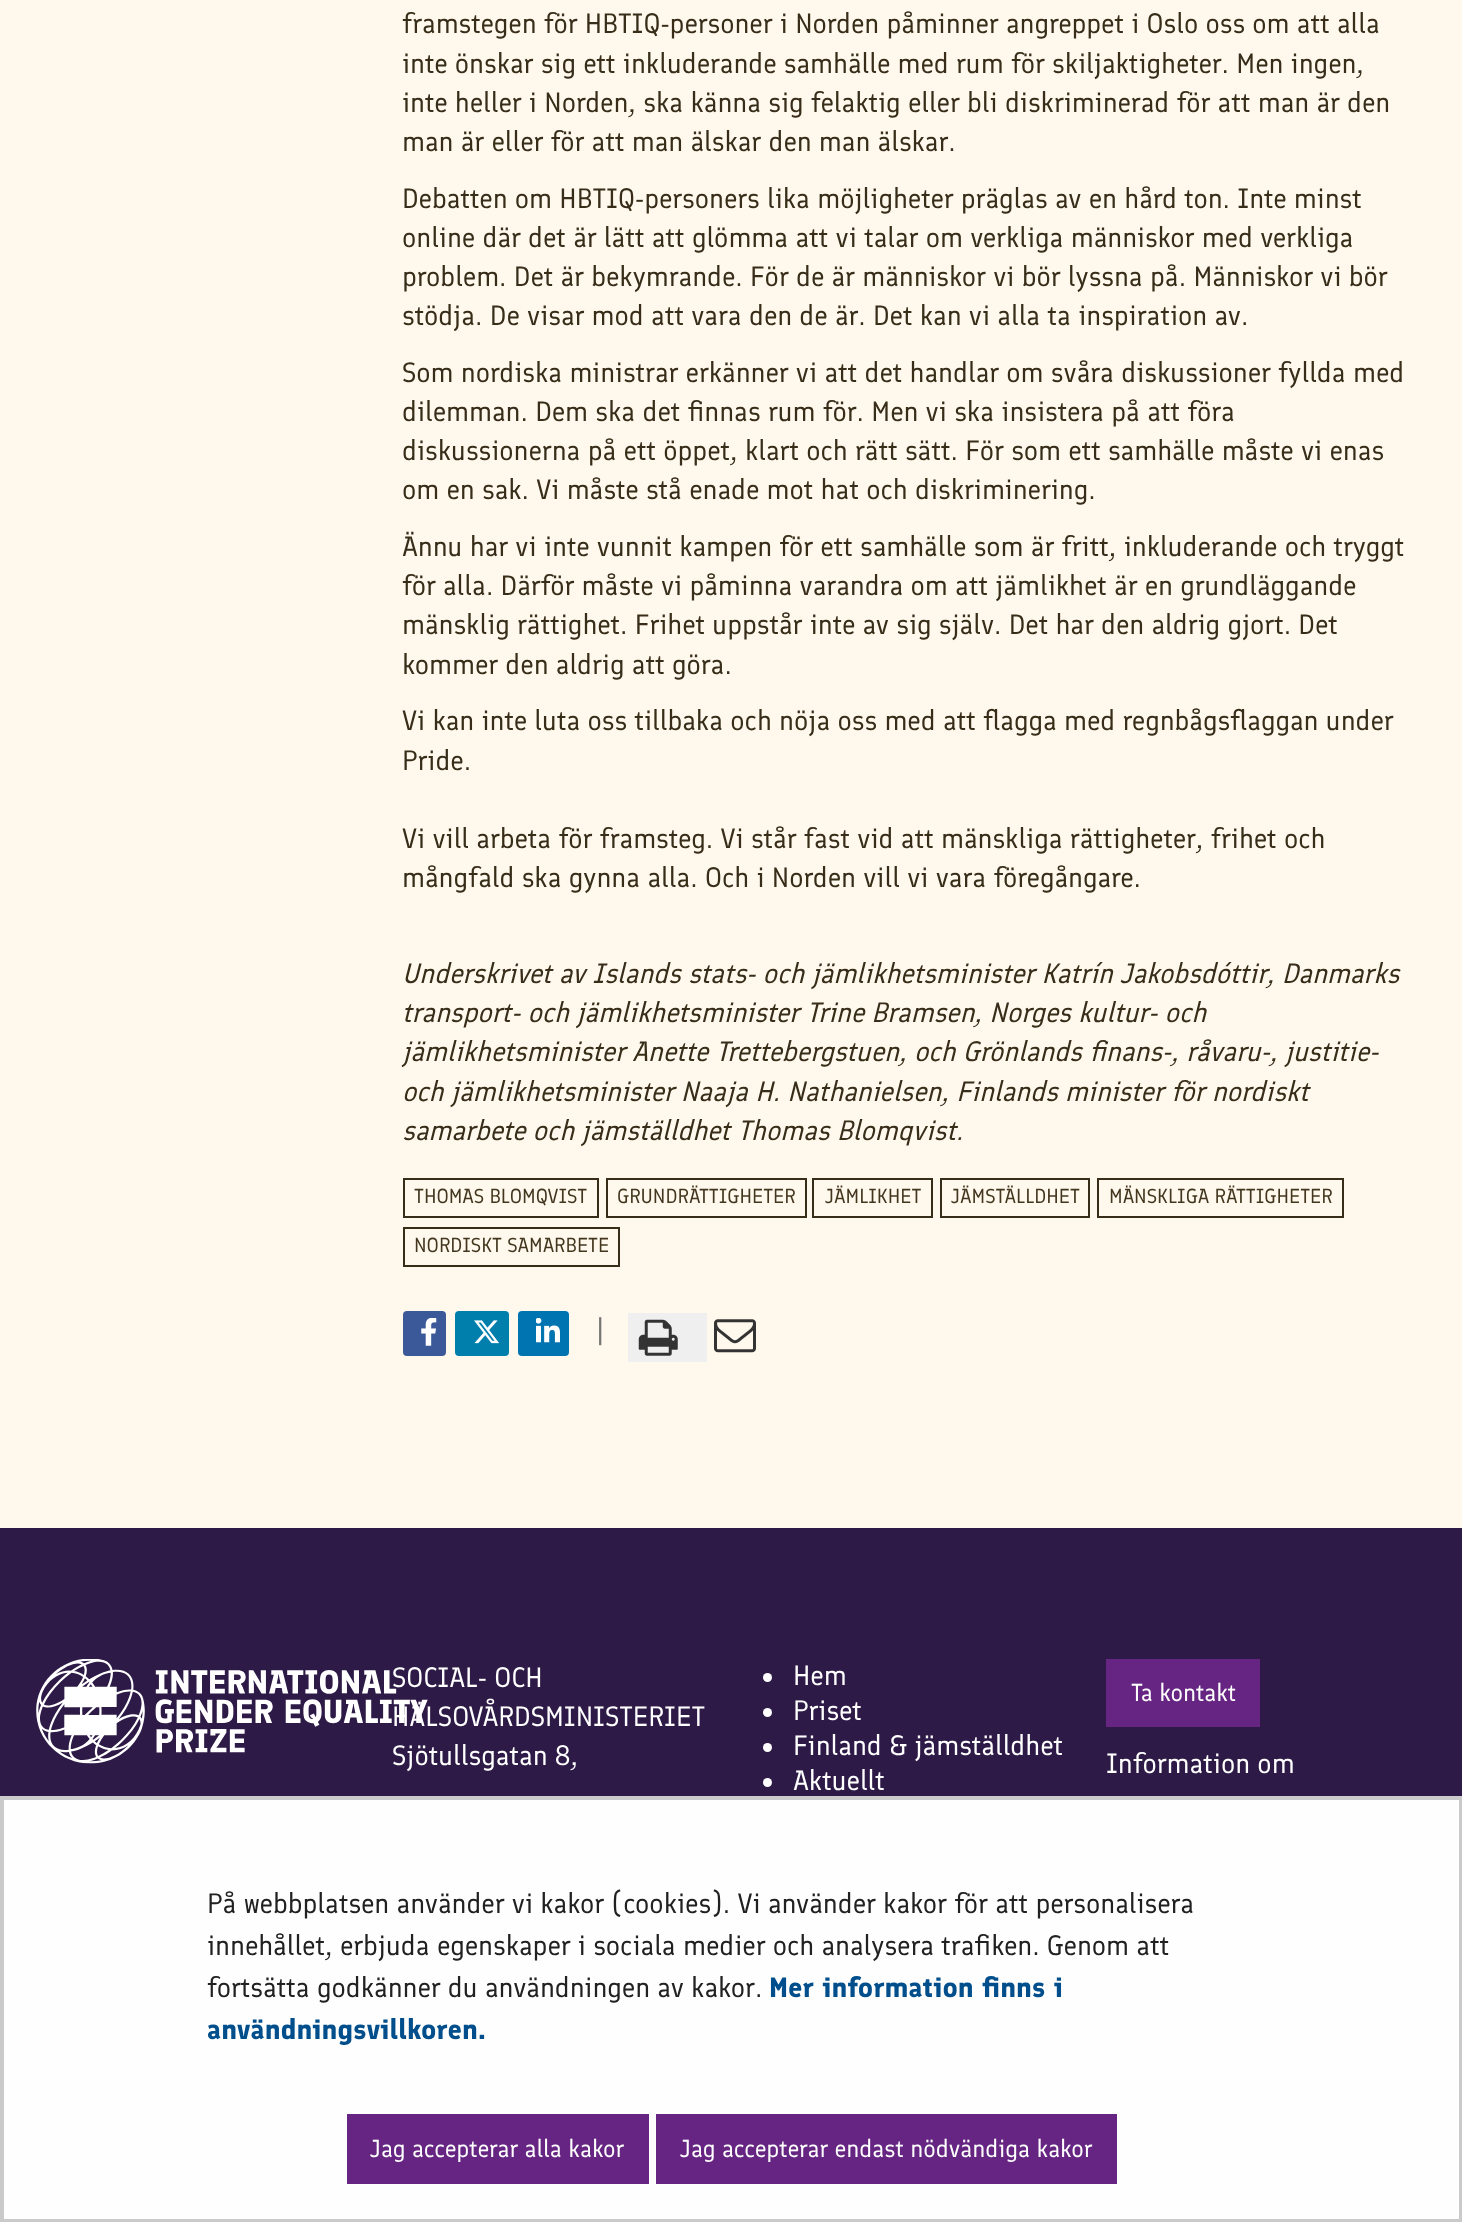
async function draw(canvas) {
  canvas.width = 1462;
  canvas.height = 2222;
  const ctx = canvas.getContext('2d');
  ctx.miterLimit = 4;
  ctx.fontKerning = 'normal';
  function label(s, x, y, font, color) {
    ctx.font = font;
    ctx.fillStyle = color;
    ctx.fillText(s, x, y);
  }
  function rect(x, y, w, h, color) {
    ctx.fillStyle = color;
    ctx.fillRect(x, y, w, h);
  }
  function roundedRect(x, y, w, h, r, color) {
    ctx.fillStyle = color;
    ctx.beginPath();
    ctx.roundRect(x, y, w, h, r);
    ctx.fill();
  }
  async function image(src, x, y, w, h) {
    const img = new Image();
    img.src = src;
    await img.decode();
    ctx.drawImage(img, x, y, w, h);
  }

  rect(0, 0, 1462, 2222, '#fff8ed');
  label('framstegen för HBTIQ-personer i Norden påminner angreppet i Oslo oss om att alla', 402, 33, '28px Finlandica', '#372d19');
  label('inte önskar sig ett inkluderande samhälle med rum för skiljaktigheter. Men ingen,', 402, 73, '28px Finlandica', '#372d19');
  label('inte heller i Norden, ska känna sig felaktig eller bli diskriminerad för att man är den', 402, 112, '28px Finlandica', '#372d19');
  label('man är eller för att man älskar den man älskar.', 402, 151, '28px Finlandica', '#372d19');
  label('Debatten om HBTIQ-personers lika möjligheter präglas av en hård ton. Inte minst', 402, 208, '28px Finlandica', '#372d19');
  label('online där det är lätt att glömma att vi talar om verkliga människor med verkliga', 402, 247, '28px Finlandica', '#372d19');
  label('problem. Det är bekymrande. För de är människor vi bör lyssna på. Människor vi bör', 402, 286, '28px Finlandica', '#372d19');
  label('stödja. De visar mod att vara den de är. Det kan vi alla ta inspiration av.', 402, 325, '28px Finlandica', '#372d19');
  label('Som nordiska ministrar erkänner vi att det handlar om svåra diskussioner fyllda med', 402, 382, '28px Finlandica', '#372d19');
  label('dilemman. Dem ska det finnas rum för. Men vi ska insistera på att föra', 402, 421, '28px Finlandica', '#372d19');
  label('diskussionerna på ett öppet, klart och rätt sätt. För som ett samhälle måste vi enas', 402, 460, '28px Finlandica', '#372d19');
  label('om en sak. Vi måste stå enade mot hat och diskriminering.', 402, 499, '28px Finlandica', '#372d19');
  label('Ännu har vi inte vunnit kampen för ett samhälle som är fritt, inkluderande och tryggt', 402, 556, '28px Finlandica', '#372d19');
  label('för alla. Därför måste vi påminna varandra om att jämlikhet är en grundläggande', 402, 595, '28px Finlandica', '#372d19');
  label('mänsklig rättighet. Frihet uppstår inte av sig själv. Det har den aldrig gjort. Det', 402, 634, '28px Finlandica', '#372d19');
  label('kommer den aldrig att göra.', 402, 674, '28px Finlandica', '#372d19');
  label('Vi kan inte luta oss tillbaka och nöja oss med att flagga med regnbågsflaggan under', 402, 730, '28px Finlandica', '#372d19');
  label('Pride.', 402, 770, '28px Finlandica', '#372d19');
  label('Vi vill arbeta för framsteg. Vi står fast vid att mänskliga rättigheter, frihet och', 402, 848, '28px Finlandica', '#372d19');
  label('mångfald ska gynna alla. Och i Norden vill vi vara föregångare.', 402, 887, '28px Finlandica', '#372d19');
  label('Underskrivet av Islands stats- och jämlikhetsminister Katrín Jakobsdóttir, Danmarks', 402, 983, 'italic 28px Finlandica', '#372d19');
  label('transport- och jämlikhetsminister Trine Bramsen, Norges kultur- och', 402, 1022, 'italic 28px Finlandica', '#372d19');
  label('jämlikhetsminister Anette Trettebergstuen, och Grönlands finans-, råvaru-, justitie-', 402, 1061, 'italic 28px Finlandica', '#372d19');
  label('och jämlikhetsminister Naaja H. Nathanielsen, Finlands minister för nordiskt', 402, 1101, 'italic 28px Finlandica', '#372d19');
  label('samarbete och jämställdhet Thomas Blomqvist.', 402, 1140, 'italic 28px Finlandica', '#372d19');
  ctx.strokeStyle = '#372d19';
  ctx.lineWidth = 2;
  ctx.strokeRect(607, 1179, 199, 38);
  label('GRUNDRÄTTIGHETER', 617, 1203, '20.25px Finlandica', '#42361e');
  ctx.strokeRect(813, 1179, 119, 38);
  label('JÄMLIKHET', 825, 1203, '20.25px Finlandica', '#42361e');
  ctx.strokeRect(941, 1179, 148, 38);
  label('JÄMSTÄLLDHET', 951, 1203, '20.25px Finlandica', '#42361e');
  ctx.strokeRect(1098, 1179, 245, 38);
  label('MÄNSKLIGA RÄTTIGHETER', 1109, 1203, '20.25px Finlandica', '#42361e');
  ctx.strokeRect(404, 1228, 215, 38);
  label('NORDISKT SAMARBETE', 414, 1252, '20.25px Finlandica', '#42361e');
  ctx.strokeRect(404, 1179, 194, 38);
  label('THOMAS BLOMQVIST', 414, 1203, '20.25px Finlandica', '#42361e');
  roundedRect(403, 1311, 43, 45, 4, '#3b5998');
  await image('assets/img1.png', 421, 1318, 16, 28);
  roundedRect(455, 1311, 54, 45, 4, '#007fad');
  await image('assets/img2.png', 474, 1320, 25, 24);
  roundedRect(518, 1311, 51, 45, 4, '#0073b1');
  await image('assets/img3.png', 536, 1318, 24, 25);
  label('|', 596, 1341, '28px Finlandica', '#757575');
  rect(628, 1313, 79, 49, '#efefef');
  await image('assets/img4.png', 638, 1319, 40, 37);
  await image('assets/img5.png', 714, 1319, 42, 34);
  rect(0, 1528, 1462, 268, '#2e1a47');
  await image('assets/img6.png', 36, 1659, 392, 105);
  label('SOCIAL- OCH', 392, 1687, '28px Finlandica', '#fff');
  label('HÄLSOVÅRDSMINISTERIET', 392, 1726, '28px Finlandica', '#fff');
  label('Sjötullsgatan 8,', 392, 1765, '28px Finlandica', '#fff');
  ctx.beginPath();
  ctx.arc(767.5, 1677.5, 4.5, 0, 2 * Math.PI);
  ctx.fill();
  label('Hem', 793, 1685, '28px Finlandica', '#fff');
  ctx.beginPath();
  ctx.arc(767.5, 1712.5, 4.5, 0, 2 * Math.PI);
  ctx.fill();
  label('Priset', 793, 1720, '28px Finlandica', '#fff');
  ctx.beginPath();
  ctx.arc(767.5, 1747.5, 4.5, 0, 2 * Math.PI);
  ctx.fill();
  label('Finland & jämställdhet', 793, 1755, '28px Finlandica', '#fff');
  ctx.beginPath();
  ctx.arc(767.5, 1782.5, 4.5, 0, 2 * Math.PI);
  ctx.fill();
  label('Aktuellt', 793, 1790, '28px Finlandica', '#fff');
  rect(1106, 1659, 154, 68, '#662582');
  label('Ta kontakt', 1131, 1701, '24.5px Finlandica', '#fff');
  label('Information om', 1106, 1773, '28px Finlandica', '#fff');
  ctx.fillStyle = '#fefefe';
  ctx.beginPath();
  ctx.rect(2, 1798, 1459, 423);
  ctx.fill();
  ctx.strokeStyle = '#cacaca';
  ctx.lineWidth = 4;
  ctx.stroke();
  label('På webbplatsen använder vi kakor (cookies). Vi använder kakor för att personalisera', 207, 1913, '28px Finlandica', '#212121');
  label('innehållet, erbjuda egenskaper i sociala medier och analysera trafiken. Genom att', 207, 1955, '28px Finlandica', '#212121');
  label('fortsätta godkänner du användningen av kakor.', 207, 1997, '28px Finlandica', '#212121');
  label('Mer information finns i', 769, 1997, 'bold 28px Finlandica', '#004f8c');
  label('användningsvillkoren.', 207, 2039, 'bold 28px Finlandica', '#004f8c');
  rect(347, 2114, 302, 70, '#662582');
  label('Jag accepterar alla kakor', 370, 2157, '24.5px Finlandica', '#fff');
  rect(656, 2114, 461, 70, '#662582');
  label('Jag accepterar endast nödvändiga kakor', 680, 2157, '24.5px Finlandica', '#fff');
}

draw(document.querySelector('canvas'));
